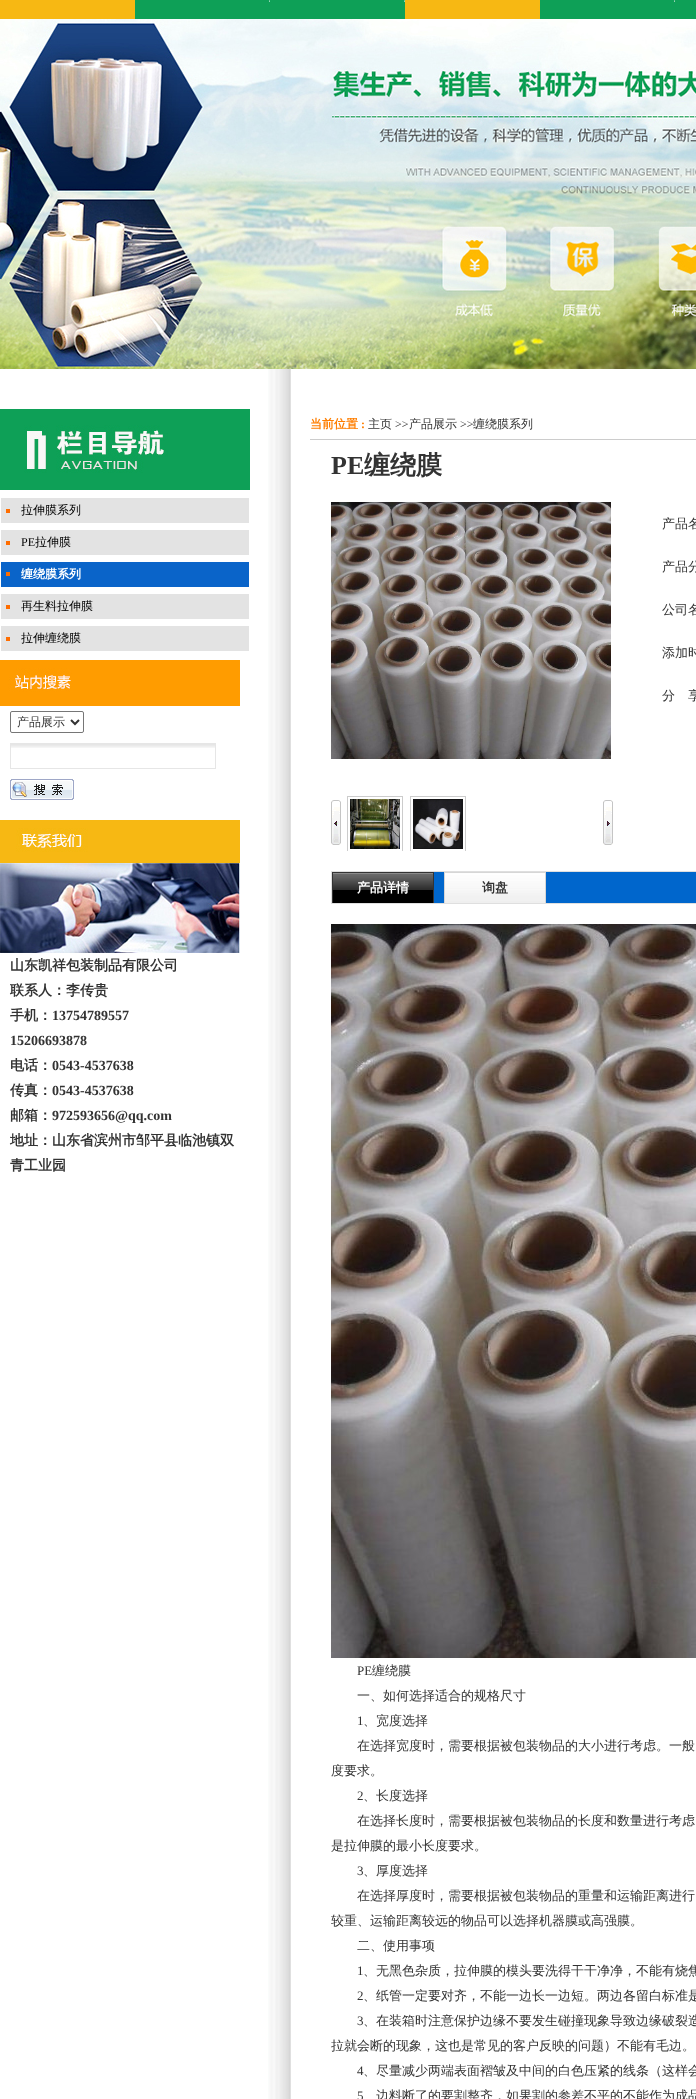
async function draw(canvas) {
  canvas.width = 696;
  canvas.height = 2099;
  const ctx = canvas.getContext('2d');
  ctx.miterLimit = 4;
  ctx.fontKerning = 'normal';
  function label(s, x, y, font, color) {
    ctx.font = font;
    ctx.fillStyle = color;
    ctx.fillText(s, x, y);
  }
  function rect(x, y, w, h, color) {
    ctx.fillStyle = color;
    ctx.fillRect(x, y, w, h);
  }
  async function image(src, x, y, w, h) {
    const img = new Image();
    img.src = src;
    await img.decode();
    ctx.drawImage(img, x, y, w, h);
  }
  let path;

  rect(0, 0, 696, 2099, '#fff');
  rect(135, 0, 561, 19, '#0ea057');
  rect(0, 0, 135, 19, '#f7b813');
  await image('assets/img1.png', 269, 0, 1, 2);
  await image('assets/img1.png', 404, 0, 1, 2);
  rect(405, 0, 135, 19, '#f7b813');
  await image('assets/img1.png', 674, 0, 1, 2);
  await image('assets/img2.png', 0, 19, 696, 350);
  await image('assets/img3.png', 268, 369, 23, 1730);
  await image('assets/img4.png', 0, 409, 250, 81);
  await image('assets/img5.png', 1, 498, 248, 25);
  label('拉伸膜系列', 21, 514, '500 12px WenQuanYi Zen Hei', '#000');
  await image('assets/img5.png', 1, 530, 248, 25);
  label('PE', 21, 546, '12px Liberation Serif', '#000');
  label('拉伸膜', 35, 546, '500 12px WenQuanYi Zen Hei', '#000');
  await image('assets/img6.png', 1, 562, 248, 25);
  label('缠绕膜系列', 21, 578, 'bold 12px WenQuanYi Zen Hei', '#fff');
  await image('assets/img5.png', 1, 594, 248, 25);
  label('再生料拉伸膜', 21, 610, '500 12px WenQuanYi Zen Hei', '#000');
  await image('assets/img5.png', 1, 626, 248, 25);
  label('拉伸缠绕膜', 21, 642, '500 12px WenQuanYi Zen Hei', '#000');
  await image('assets/img7.png', 0, 660, 240, 46);
  ctx.beginPath();
  ctx.roundRect(10.5, 711.5, 73, 21, 1.5);
  ctx.strokeStyle = '#767676';
  ctx.stroke();
  path = new Path2D('M71 720L75 724L79 720');
  ctx.strokeStyle = '#333';
  ctx.lineWidth = 2;
  ctx.stroke(path);
  label('产品展示', 17, 726, '500 12px WenQuanYi Zen Hei', '#333');
  await image('assets/img8.png', 11, 744, 204, 4);
  ctx.strokeStyle = '#e6e6e6';
  ctx.lineWidth = 1;
  ctx.strokeRect(10.5, 743.5, 205, 25);
  await image('assets/img9.png', 10, 779, 64, 21);
  await image('assets/img10.png', 0, 820, 240, 43);
  await image('assets/img11.png', 0, 863, 240, 90);
  label('山东凯祥包装制品有限公司', 10, 970, 'bold 14px WenQuanYi Zen Hei', '#333');
  label('联系人：李传贵', 10, 995, 'bold 14px WenQuanYi Zen Hei', '#333');
  label('手机：', 10, 1020, 'bold 14px WenQuanYi Zen Hei', '#333');
  label('13754789557', 52, 1020, 'bold 14px Liberation Serif', '#333');
  label('15206693878', 10, 1045, 'bold 14px Liberation Serif', '#333');
  label('电话：', 10, 1070, 'bold 14px WenQuanYi Zen Hei', '#333');
  label('0543-4537638', 52, 1070, 'bold 14px Liberation Serif', '#333');
  label('传真：', 10, 1095, 'bold 14px WenQuanYi Zen Hei', '#333');
  label('0543-4537638', 52, 1095, 'bold 14px Liberation Serif', '#333');
  label('邮箱：', 10, 1120, 'bold 14px WenQuanYi Zen Hei', '#333');
  label('972593656@qq.com', 52, 1120, 'bold 14px Liberation Serif', '#333');
  label('地址：山东省滨州市邹平县临池镇双', 10, 1145, 'bold 14px WenQuanYi Zen Hei', '#333');
  label('青工业园', 10, 1170, 'bold 14px WenQuanYi Zen Hei', '#333');
  rect(310, 439, 386, 1, '#ccc');
  label('当前位置', 310, 428, 'bold 12px WenQuanYi Zen Hei', '#ff7e00');
  label(':', 361, 428, 'bold 12px Liberation Serif', '#ff7e00');
  label('主页', 368, 428, '500 12px WenQuanYi Zen Hei', '#333');
  label('>>', 395, 428, '12px Liberation Serif', '#333');
  label('产品展示', 409, 428, '500 12px WenQuanYi Zen Hei', '#333');
  label('>>', 460, 428, '12px Liberation Serif', '#333');
  label('缠绕膜系列', 473, 428, '500 12px WenQuanYi Zen Hei', '#333');
  label('PE', 331, 474, 'bold 26px Liberation Serif', '#333');
  label('缠绕膜', 364, 474, 'bold 26px WenQuanYi Zen Hei', '#333');
  await image('assets/img12.png', 331, 502, 280, 257);
  await image('assets/img13.png', 331, 800, 10, 45);
  ctx.save();
  ctx.beginPath();
  ctx.rect(344, 796, 62, 55);
  ctx.clip();
  ctx.strokeStyle = '#ccc';
  ctx.strokeRect(347.5, 796.5, 55, 55);
  ctx.restore();
  await image('assets/img14.png', 350, 799, 50, 50);
  ctx.save();
  ctx.beginPath();
  ctx.rect(407, 796, 62, 55);
  ctx.clip();
  ctx.strokeStyle = '#ccc';
  ctx.strokeRect(410.5, 796.5, 55, 55);
  ctx.restore();
  await image('assets/img15.png', 413, 799, 50, 50);
  await image('assets/img16.png', 603, 800, 10, 45);
  label('产品名', 662, 528, '500 13px WenQuanYi Zen Hei', '#333');
  label('产品分', 662, 571, '500 13px WenQuanYi Zen Hei', '#333');
  label('公司名', 662, 614, '500 13px WenQuanYi Zen Hei', '#333');
  label('添加时', 662, 657, '500 13px WenQuanYi Zen Hei', '#333');
  label('分', 662, 700, '500 13px WenQuanYi Zen Hei', '#333');
  label('享', 688, 700, '500 13px WenQuanYi Zen Hei', '#333');
  rect(434, 872, 262, 31, '#06c');
  ctx.strokeStyle = '#dfdfdf';
  ctx.strokeRect(331.5, 871.5, 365, 32);
  await image('assets/img17.png', 333, 873, 100, 30);
  rect(332, 872, 102, 1, '#333');
  rect(433, 872, 1, 31, '#333');
  rect(332, 872, 1, 31, '#333');
  label('产品详情', 357, 892, 'bold 13px WenQuanYi Zen Hei', '#fff');
  await image('assets/img18.png', 445, 873, 100, 30);
  rect(444, 872, 102, 1, '#d6d6d6');
  rect(545, 872, 1, 31, '#d6d6d6');
  rect(444, 872, 1, 31, '#d6d6d6');
  label('询盘', 482, 892, 'bold 13px WenQuanYi Zen Hei', '#333');
  await image('assets/img19.png', 331, 924, 365, 734);
  label('PE', 357, 1675, '13px Liberation Serif', '#333');
  label('缠绕膜', 372, 1675, '500 13px WenQuanYi Zen Hei', '#333');
  label('一、如何选择适合的规格尺寸', 357, 1700, '500 13px WenQuanYi Zen Hei', '#333');
  label('1', 357, 1725, '13px Liberation Serif', '#333');
  label('、宽度选择', 363, 1725, '500 13px WenQuanYi Zen Hei', '#333');
  label('在选择宽度时，需要根据被包装物品的大小进行考虑。一般', 357, 1750, '500 13px WenQuanYi Zen Hei', '#333');
  label('度要求。', 331, 1775, '500 13px WenQuanYi Zen Hei', '#333');
  label('2', 357, 1800, '13px Liberation Serif', '#333');
  label('、长度选择', 363, 1800, '500 13px WenQuanYi Zen Hei', '#333');
  label('在选择长度时，需要根据被包装物品的长度和数量进行考虑', 357, 1825, '500 13px WenQuanYi Zen Hei', '#333');
  label('是拉伸膜的最小长度要求。', 331, 1850, '500 13px WenQuanYi Zen Hei', '#333');
  label('3', 357, 1875, '13px Liberation Serif', '#333');
  label('、厚度选择', 363, 1875, '500 13px WenQuanYi Zen Hei', '#333');
  label('在选择厚度时，需要根据被包装物品的重量和运输距离进行', 357, 1900, '500 13px WenQuanYi Zen Hei', '#333');
  label('较重、运输距离较远的物品可以选择机器膜或高强膜。', 331, 1925, '500 13px WenQuanYi Zen Hei', '#333');
  label('二、使用事项', 357, 1950, '500 13px WenQuanYi Zen Hei', '#333');
  label('1', 357, 1975, '13px Liberation Serif', '#333');
  label('、无黑色杂质，拉伸膜的模头要洗得干干净净，不能有烧焦', 363, 1975, '500 13px WenQuanYi Zen Hei', '#333');
  label('2', 357, 2000, '13px Liberation Serif', '#333');
  label('、纸管一定要对齐，不能一边长一边短。两边各留白标准是', 363, 2000, '500 13px WenQuanYi Zen Hei', '#333');
  label('3', 357, 2025, '13px Liberation Serif', '#333');
  label('、在装箱时注意保护边缘不要发生碰撞现象导致边缘破裂造', 363, 2025, '500 13px WenQuanYi Zen Hei', '#333');
  label('拉就会断的现象，这也是常见的客户反映的问题）不能有毛边。', 331, 2050, '500 13px WenQuanYi Zen Hei', '#333');
  label('4', 357, 2075, '13px Liberation Serif', '#333');
  label('、尽量减少两端表面褶皱及中间的白色压紧的线条（这样会', 363, 2075, '500 13px WenQuanYi Zen Hei', '#333');
  label('5', 357, 2100, '13px Liberation Serif', '#333');
  label('边料断了的要割整齐，如果割的参差不平的不能作为成品', 376, 2100, '500 13px WenQuanYi Zen Hei', '#333');
}

draw(document.querySelector('canvas'));
